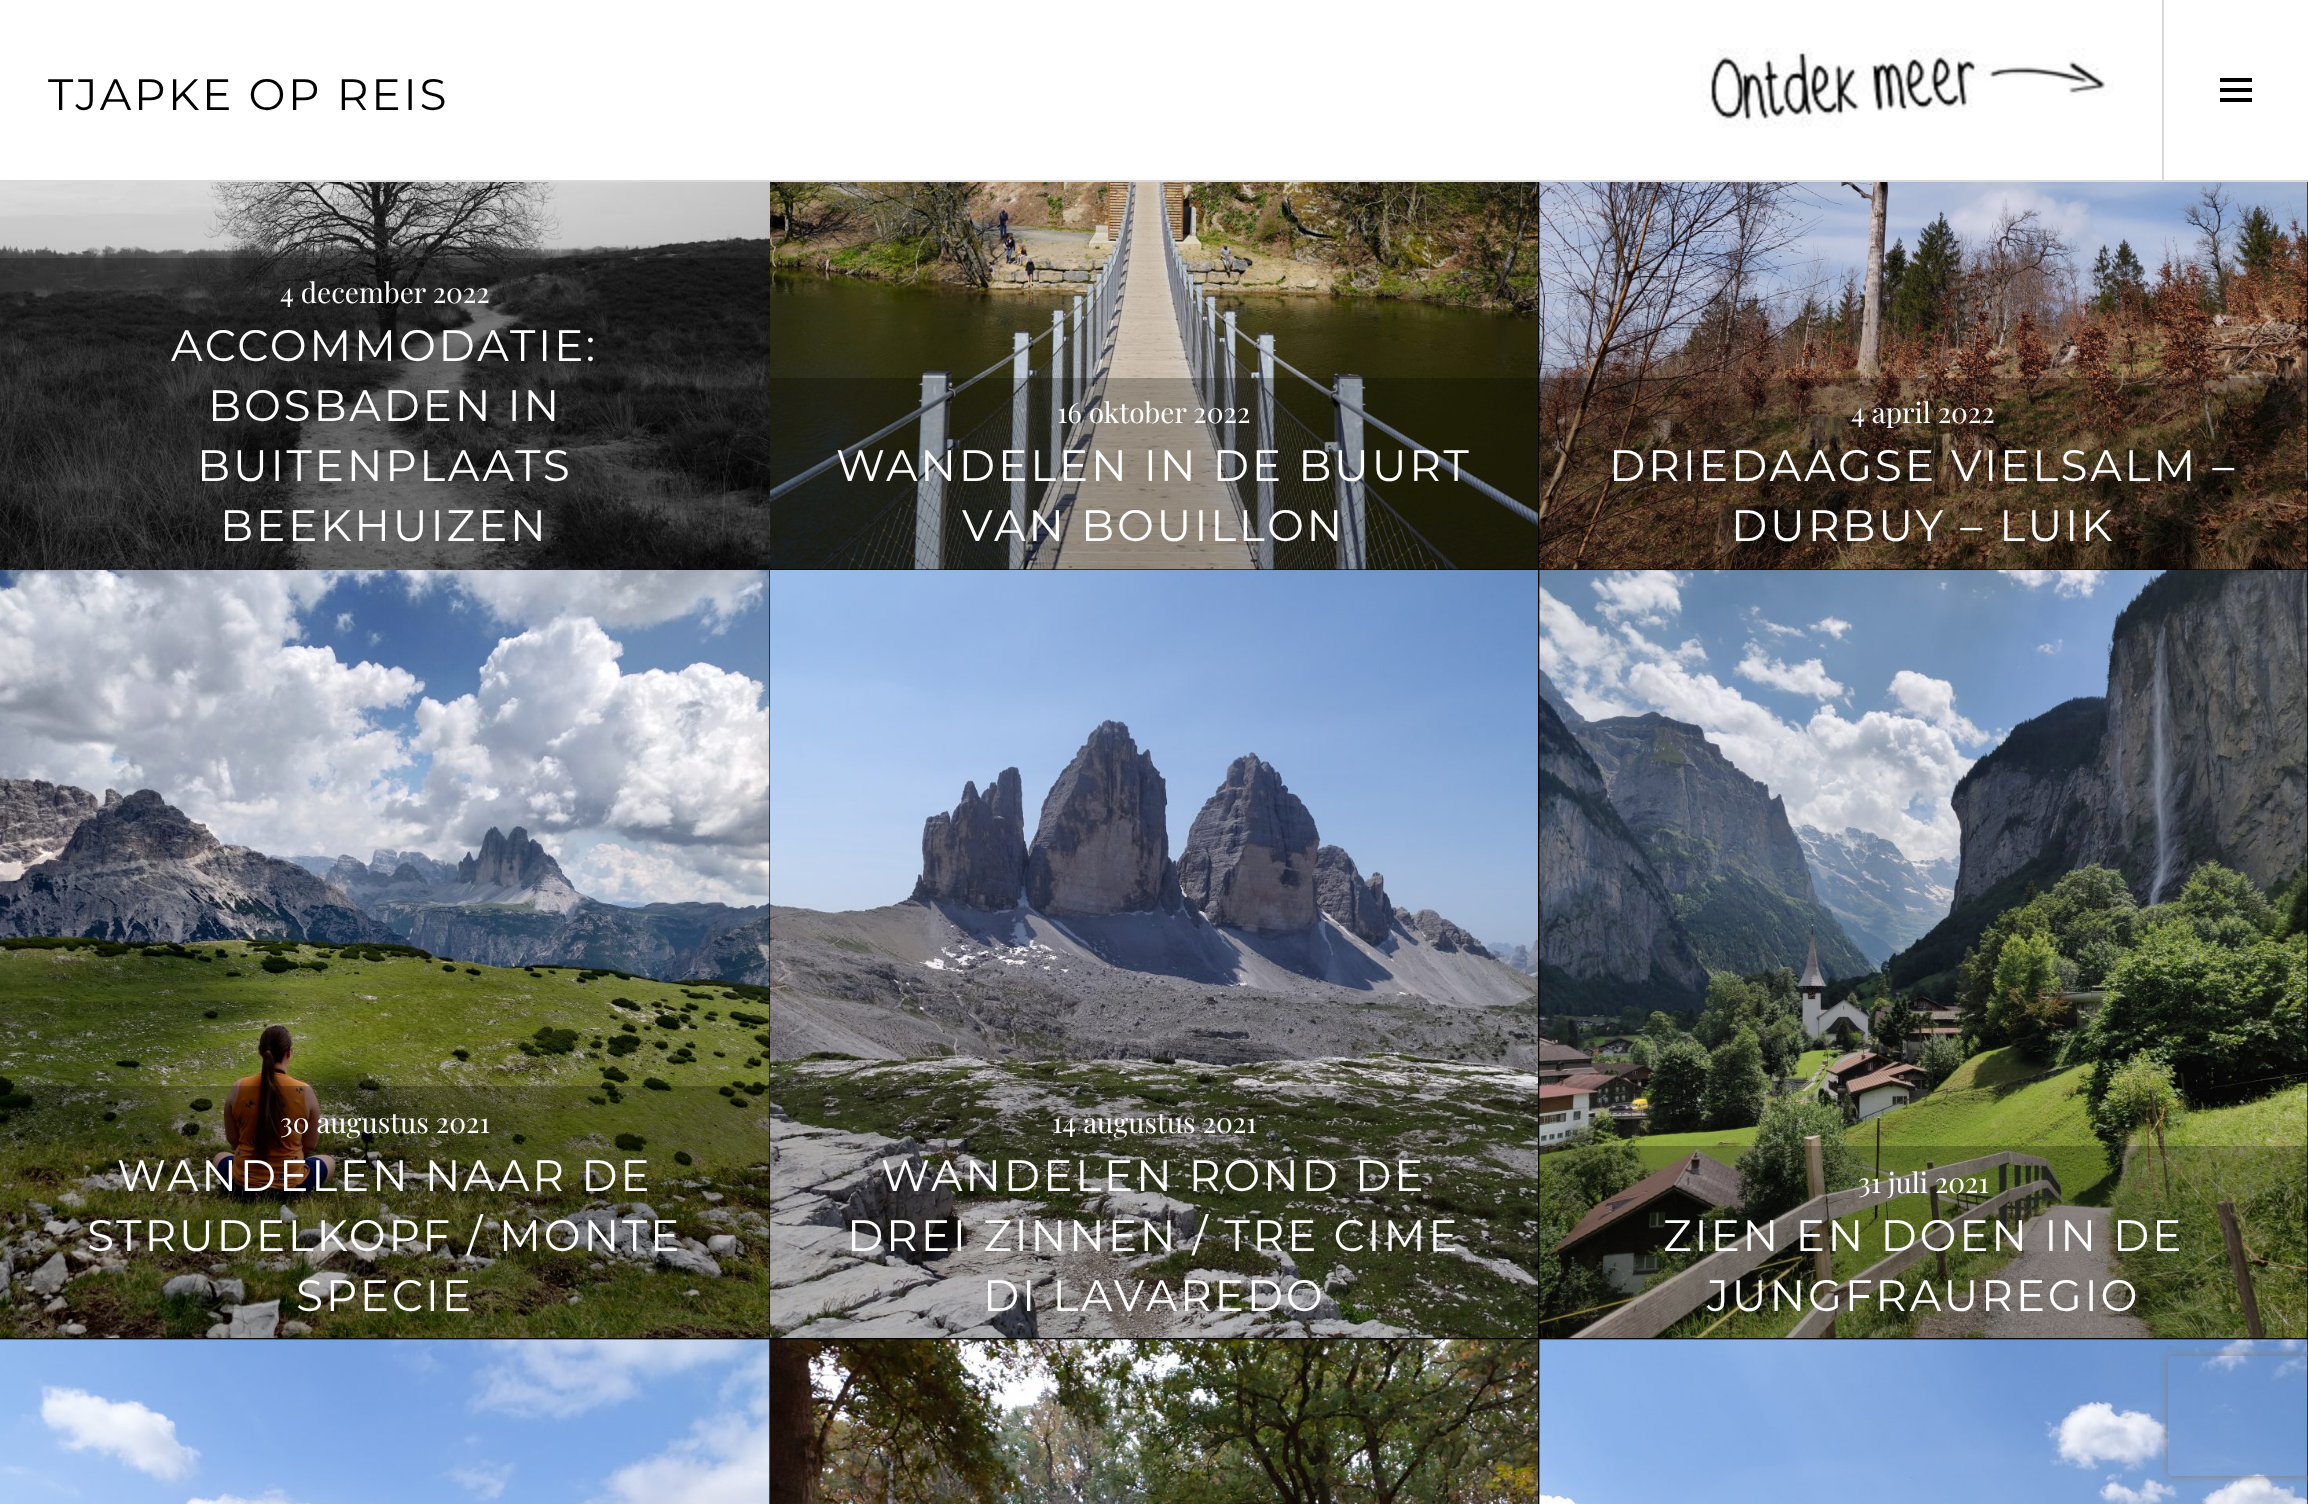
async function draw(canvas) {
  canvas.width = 2308;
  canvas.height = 1504;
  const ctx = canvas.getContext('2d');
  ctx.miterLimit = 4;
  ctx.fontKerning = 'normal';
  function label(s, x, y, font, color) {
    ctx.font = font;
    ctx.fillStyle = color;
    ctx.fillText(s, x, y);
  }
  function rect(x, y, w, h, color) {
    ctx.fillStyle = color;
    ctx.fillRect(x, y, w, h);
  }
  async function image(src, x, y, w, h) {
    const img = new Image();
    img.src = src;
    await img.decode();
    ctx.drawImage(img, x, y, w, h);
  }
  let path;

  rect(0, 0, 2308, 1504, '#fff');
  rect(0, 180, 2308, 2, '#d9d9d9');
  ctx.letterSpacing = '2.75px';
  label('TJAPKE OP REIS', 48, 110, '44px Montserrat', '#000');
  await image('assets/img1.png', 1700, 48, 414, 80);
  rect(2162, 0, 2, 180, '#d9d9d9');
  await image('assets/img2.png', 2220, 78, 32, 24);
  await image('assets/img3.png', 0, 182, 770, 388);
  rect(0, 258, 770, 312, '#00000040');
  ctx.letterSpacing = '0px';
  label('4 december 2022', 280, 303, '28px Playfair Display', '#fff');
  ctx.letterSpacing = '2.75px';
  label('ACCOMMODATIE:', 171, 361, '44px Montserrat', '#fff');
  label('BOSBADEN IN', 208, 421, '44px Montserrat', '#fff');
  label('BUITENPLAATS', 197, 481, '44px Montserrat', '#fff');
  label('BEEKHUIZEN', 220, 541, '44px Montserrat', '#fff');
  rect(770, 569, 768, 1, '#000');
  await image('assets/img4.png', 770, 182, 768, 388);
  rect(770, 378, 768, 192, '#00000040');
  ctx.letterSpacing = '0px';
  label('16 oktober 2022', 1057, 423, '28px Playfair Display', '#fff');
  ctx.letterSpacing = '2.75px';
  label('WANDELEN IN DE BUURT', 836, 481, '44px Montserrat', '#fff');
  label('VAN BOUILLON', 962, 541, '44px Montserrat', '#fff');
  rect(1538, 182, 770, 1322, '#000');
  await image('assets/img5.png', 1539, 182, 769, 388);
  rect(1539, 378, 769, 192, '#00000040');
  ctx.letterSpacing = '0px';
  label('4 april 2022', 1851, 423, '28px Playfair Display', '#fff');
  ctx.letterSpacing = '2.75px';
  label('DRIEDAAGSE VIELSALM –', 1609, 481, '44px Montserrat', '#fff');
  label('DURBUY – LUIK', 1731, 541, '44px Montserrat', '#fff');
  rect(769, 570, 1, 768, '#000');
  await image('assets/img6.png', 0, 570, 770, 768);
  rect(0, 1086, 770, 252, '#00000040');
  ctx.letterSpacing = '0px';
  label('30 augustus 2021', 280, 1133, '28px Playfair Display', '#fff');
  ctx.letterSpacing = '2.75px';
  label('WANDELEN NAAR DE', 117, 1191, '44px Montserrat', '#fff');
  label('STRUDELKOPF / MONTE', 87, 1251, '44px Montserrat', '#fff');
  label('SPECIE', 296, 1311, '44px Montserrat', '#fff');
  await image('assets/img7.png', 770, 570, 768, 768);
  rect(770, 1086, 768, 252, '#00000040');
  ctx.letterSpacing = '0px';
  label('14 augustus 2021', 1052, 1133, '28px Playfair Display', '#fff');
  ctx.letterSpacing = '2.75px';
  label('WANDELEN ROND DE', 881, 1191, '44px Montserrat', '#fff');
  label('DREI ZINNEN / TRE CIME', 847, 1251, '44px Montserrat', '#fff');
  label('DI LAVAREDO', 983, 1311, '44px Montserrat', '#fff');
  await image('assets/img8.png', 1539, 570, 769, 768);
  rect(1539, 1146, 769, 192, '#00000040');
  ctx.letterSpacing = '0px';
  label('31 juli 2021', 1858, 1193, '28px Playfair Display', '#fff');
  ctx.letterSpacing = '2.75px';
  label('ZIEN EN DOEN IN DE', 1663, 1251, '44px Montserrat', '#fff');
  label('JUNGFRAUREGIO', 1707, 1311, '44px Montserrat', '#fff');
  rect(0, 1338, 770, 166, '#000');
  await image('assets/img9.png', 0, 1339, 770, 165);
  rect(770, 1338, 768, 2, '#000');
  await image('assets/img10.png', 770, 1339, 768, 165);
  await image('assets/img11.png', 1539, 1339, 769, 165);
  ctx.save();
  path = new Path2D('M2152 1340H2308V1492H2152ZM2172 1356H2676C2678 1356 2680 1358 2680 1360V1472C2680 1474 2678 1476 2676 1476H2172C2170 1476 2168 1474 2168 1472V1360C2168 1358 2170 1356 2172 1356Z');
  ctx.clip(path, 'evenodd');
  ctx.fillStyle = '#808080';
  ctx.filter = 'blur(5px)';
  ctx.beginPath();
  ctx.roundRect(2168, 1356, 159, 120, 4);
  ctx.fill();
  ctx.filter = 'none';
  ctx.restore();
}

draw(document.querySelector('canvas'));
